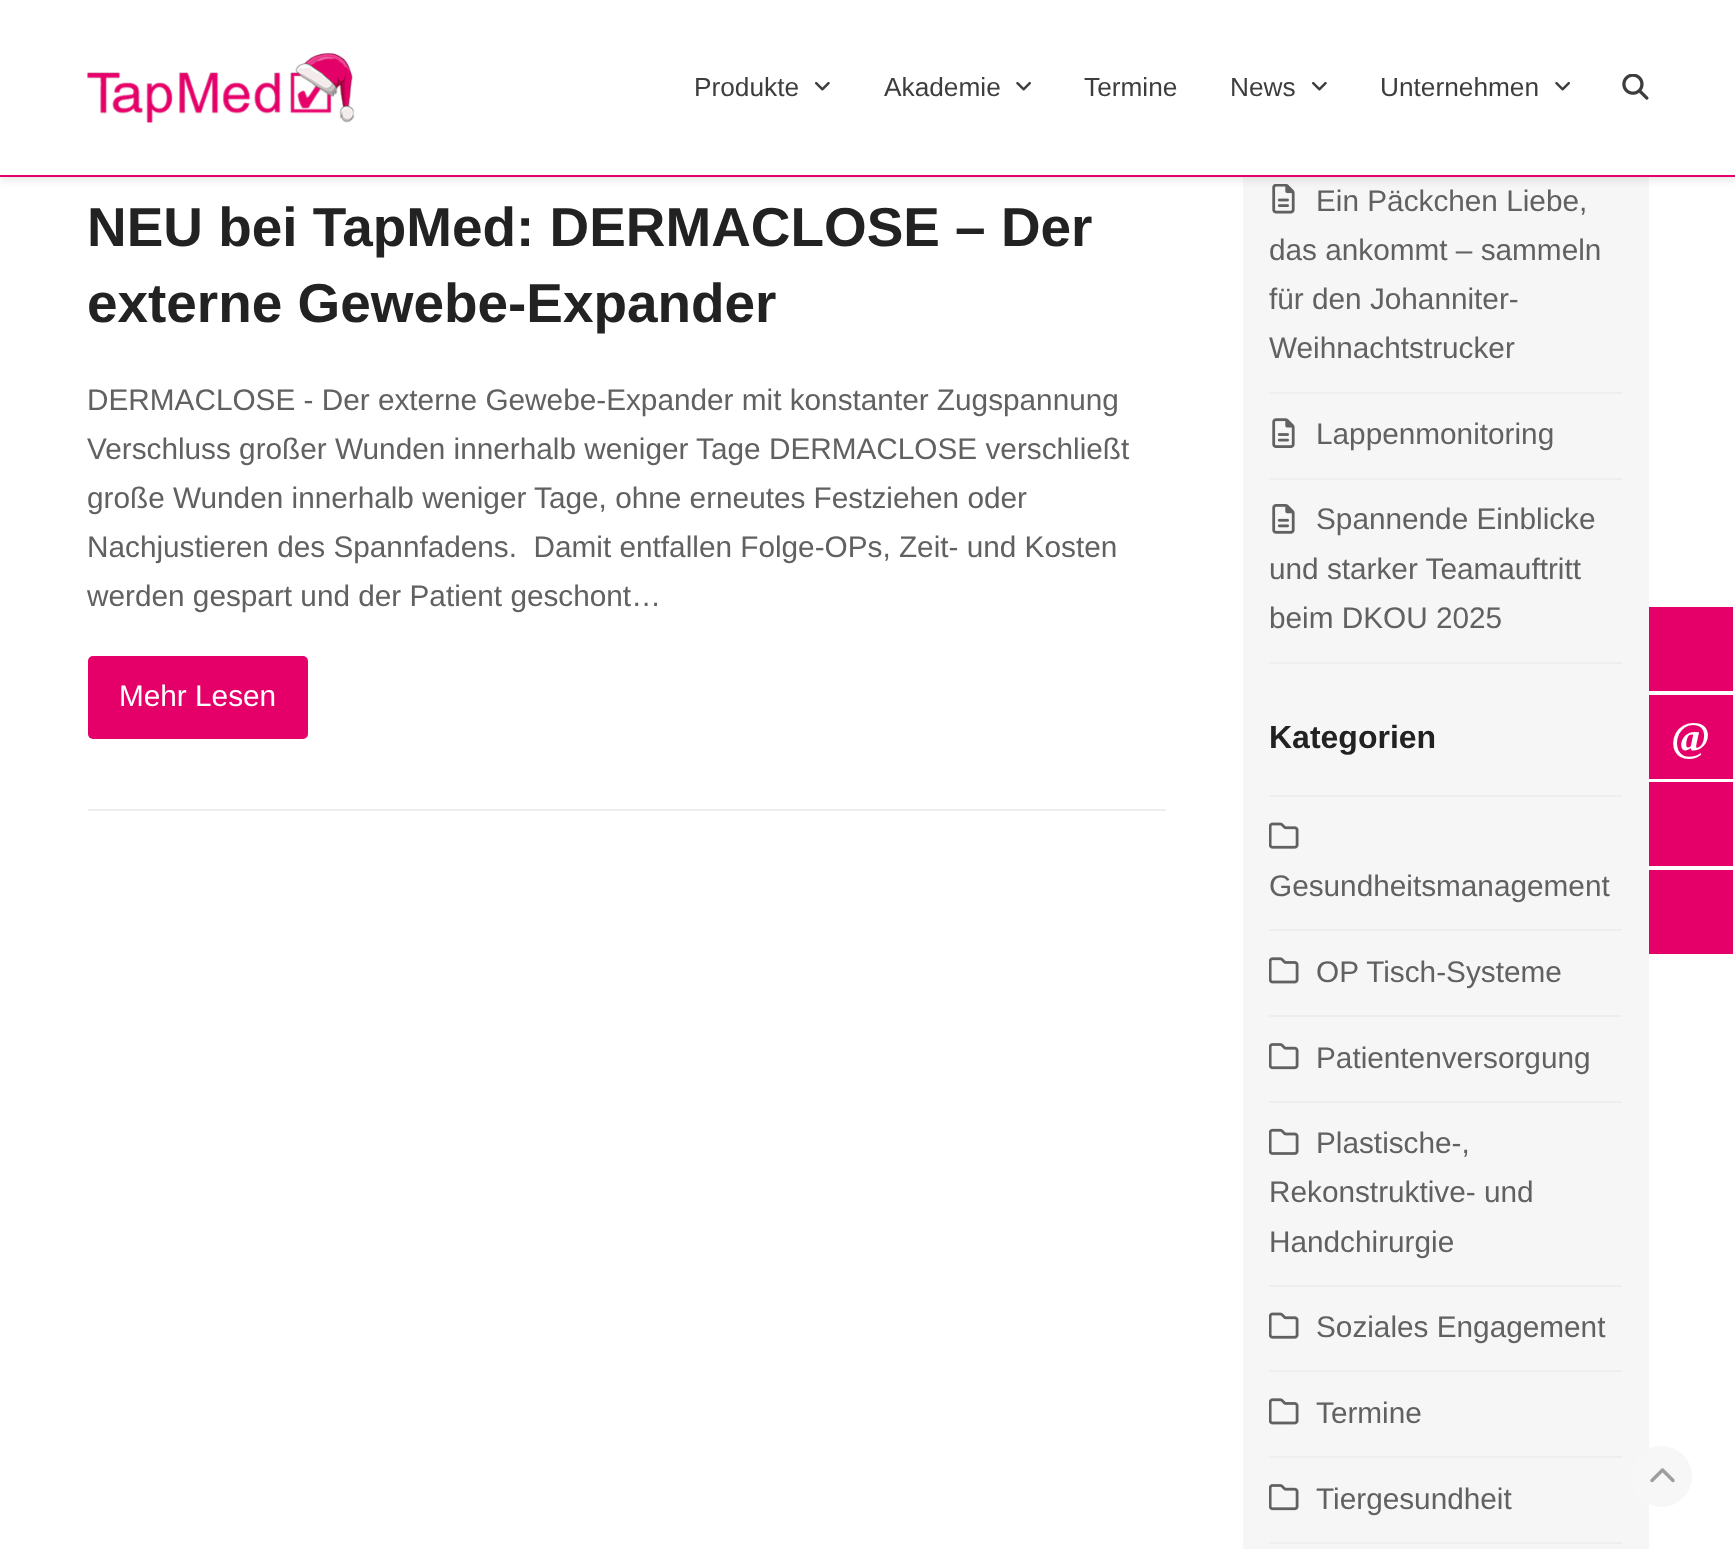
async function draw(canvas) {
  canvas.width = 1735;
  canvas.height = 1549;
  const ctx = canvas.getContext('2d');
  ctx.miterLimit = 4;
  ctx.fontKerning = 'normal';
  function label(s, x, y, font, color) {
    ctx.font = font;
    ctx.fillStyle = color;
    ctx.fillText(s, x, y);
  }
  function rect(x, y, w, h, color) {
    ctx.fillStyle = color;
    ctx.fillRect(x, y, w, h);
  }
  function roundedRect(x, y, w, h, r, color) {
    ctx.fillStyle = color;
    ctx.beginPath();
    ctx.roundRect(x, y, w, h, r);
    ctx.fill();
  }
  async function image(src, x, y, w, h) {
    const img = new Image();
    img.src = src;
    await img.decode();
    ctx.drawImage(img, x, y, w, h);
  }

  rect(0, 0, 1735, 1549, '#fff');
  rect(1243, 177, 406, 1372, '#f6f6f6');
  await image('assets/img5.png', 1272, 184, 23, 30);
  ctx.fillStyle = '#0000001a';
  ctx.filter = 'blur(4.5px)';
  ctx.beginPath();
  ctx.rect(0, 4, 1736, 176);
  ctx.fill();
  ctx.filter = 'none';
  rect(0, 0, 1735, 175, '#fff');
  rect(0, 175, 1735, 2, '#e50069');
  await image('assets/img1.png', 87, 53, 268, 70);
  label('Produkte', 694, 96, '26.25px Liberation Sans', '#3d3d3d');
  await image('assets/img2.png', 815, 81, 15, 10);
  label('Akademie', 884, 96, '26.25px Liberation Sans', '#3d3d3d');
  await image('assets/img3.png', 1016, 81, 15, 10);
  label('Termine', 1084, 96, '26.25px Liberation Sans', '#3d3d3d');
  label('News', 1230, 96, '26.25px Liberation Sans', '#3d3d3d');
  await image('assets/img2.png', 1312, 81, 15, 10);
  label('Unternehmen', 1380, 96, '26.25px Liberation Sans', '#3d3d3d');
  await image('assets/img3.png', 1555, 81, 15, 10);
  await image('assets/img4.png', 1622, 74, 27, 26);
  label('NEU bei TapMed: DERMACLOSE – Der', 87, 246, 'bold 54.9px Liberation Sans', '#222');
  label('externe Gewebe-Expander', 87, 322, 'bold 54.9px Liberation Sans', '#222');
  label('DERMACLOSE - Der externe Gewebe-Expander mit konstanter Zugspannung', 87, 410, '29.75px Liberation Sans', '#616161');
  label('Verschluss großer Wunden innerhalb weniger Tage DERMACLOSE verschließt', 87, 459, '29.75px Liberation Sans', '#616161');
  label('große Wunden innerhalb weniger Tage, ohne erneutes Festziehen oder', 87, 508, '29.75px Liberation Sans', '#616161');
  label('Nachjustieren des Spannfadens.  Damit entfallen Folge-OPs, Zeit- und Kosten', 87, 557, '29.75px Liberation Sans', '#616161');
  label('werden gespart und der Patient geschont…', 87, 606, '29.75px Liberation Sans', '#616161');
  roundedRect(88, 656, 220, 83, 5, '#e50069');
  label('Mehr Lesen', 119, 706, '29.75px Liberation Sans', '#fff');
  rect(88, 809, 1078, 2, '#eee');
  rect(1269, 392, 353, 2, '#eee');
  label('Ein Päckchen Liebe,', 1316, 211, '29.75px Liberation Sans', '#616161');
  label('das ankommt – sammeln', 1269, 260, '29.75px Liberation Sans', '#616161');
  label('für den Johanniter-', 1269, 309, '29.75px Liberation Sans', '#616161');
  label('Weihnachtstrucker', 1269, 358, '29.75px Liberation Sans', '#616161');
  rect(1269, 478, 353, 2, '#eee');
  await image('assets/img6.png', 1272, 418, 23, 30);
  label('Lappenmonitoring', 1316, 444, '29.75px Liberation Sans', '#616161');
  rect(1269, 662, 353, 2, '#eee');
  await image('assets/img7.png', 1272, 504, 23, 30);
  label('Spannende Einblicke', 1316, 529, '29.75px Liberation Sans', '#616161');
  label('und starker Teamauftritt', 1269, 579, '29.75px Liberation Sans', '#616161');
  label('beim DKOU 2025', 1269, 628, '29.75px Liberation Sans', '#616161');
  label('Kategorien', 1269, 748, 'bold 32px Liberation Sans', '#222');
  rect(1269, 795, 353, 2, '#eee');
  rect(1269, 929, 353, 2, '#eee');
  await image('assets/img8.png', 1269, 822, 30, 27);
  label('Gesundheitsmanagement', 1269, 896, '29.75px Liberation Sans', '#616161');
  rect(1269, 1015, 353, 2, '#eee');
  await image('assets/img9.png', 1269, 957, 30, 27);
  label('OP Tisch-Systeme', 1316, 982, '29.75px Liberation Sans', '#616161');
  rect(1269, 1101, 353, 2, '#eee');
  await image('assets/img10.png', 1269, 1043, 30, 27);
  label('Patientenversorgung', 1316, 1068, '29.75px Liberation Sans', '#616161');
  rect(1269, 1285, 353, 2, '#eee');
  await image('assets/img11.png', 1269, 1128, 30, 27);
  label('Plastische-,', 1316, 1153, '29.75px Liberation Sans', '#616161');
  label('Rekonstruktive- und', 1269, 1202, '29.75px Liberation Sans', '#616161');
  label('Handchirurgie', 1269, 1252, '29.75px Liberation Sans', '#616161');
  rect(1269, 1370, 353, 2, '#eee');
  await image('assets/img8.png', 1269, 1312, 30, 27);
  label('Soziales Engagement', 1316, 1337, '29.75px Liberation Sans', '#616161');
  rect(1269, 1456, 353, 2, '#eee');
  await image('assets/img9.png', 1269, 1398, 30, 27);
  label('Termine', 1316, 1423, '29.75px Liberation Sans', '#616161');
  rect(1269, 1542, 353, 2, '#eee');
  await image('assets/img10.png', 1269, 1484, 30, 27);
  label('Tiergesundheit', 1316, 1509, '29.75px Liberation Sans', '#616161');
  rect(1649, 607, 84, 84, '#e50069');
  rect(1649, 695, 84, 84, '#e50069');
  label('@', 1671, 751, 'bold 42px Liberation Serif', '#fff');
  rect(1649, 782, 84, 84, '#e50069');
  rect(1649, 870, 84, 84, '#e50069');
  ctx.fillStyle = '#f7f7f7';
  ctx.beginPath();
  ctx.arc(1661.5, 1476.5, 30.5, 0, 2 * Math.PI);
  ctx.fill();
  await image('assets/img12.png', 1650, 1468, 25, 15);
}

draw(document.querySelector('canvas'));
